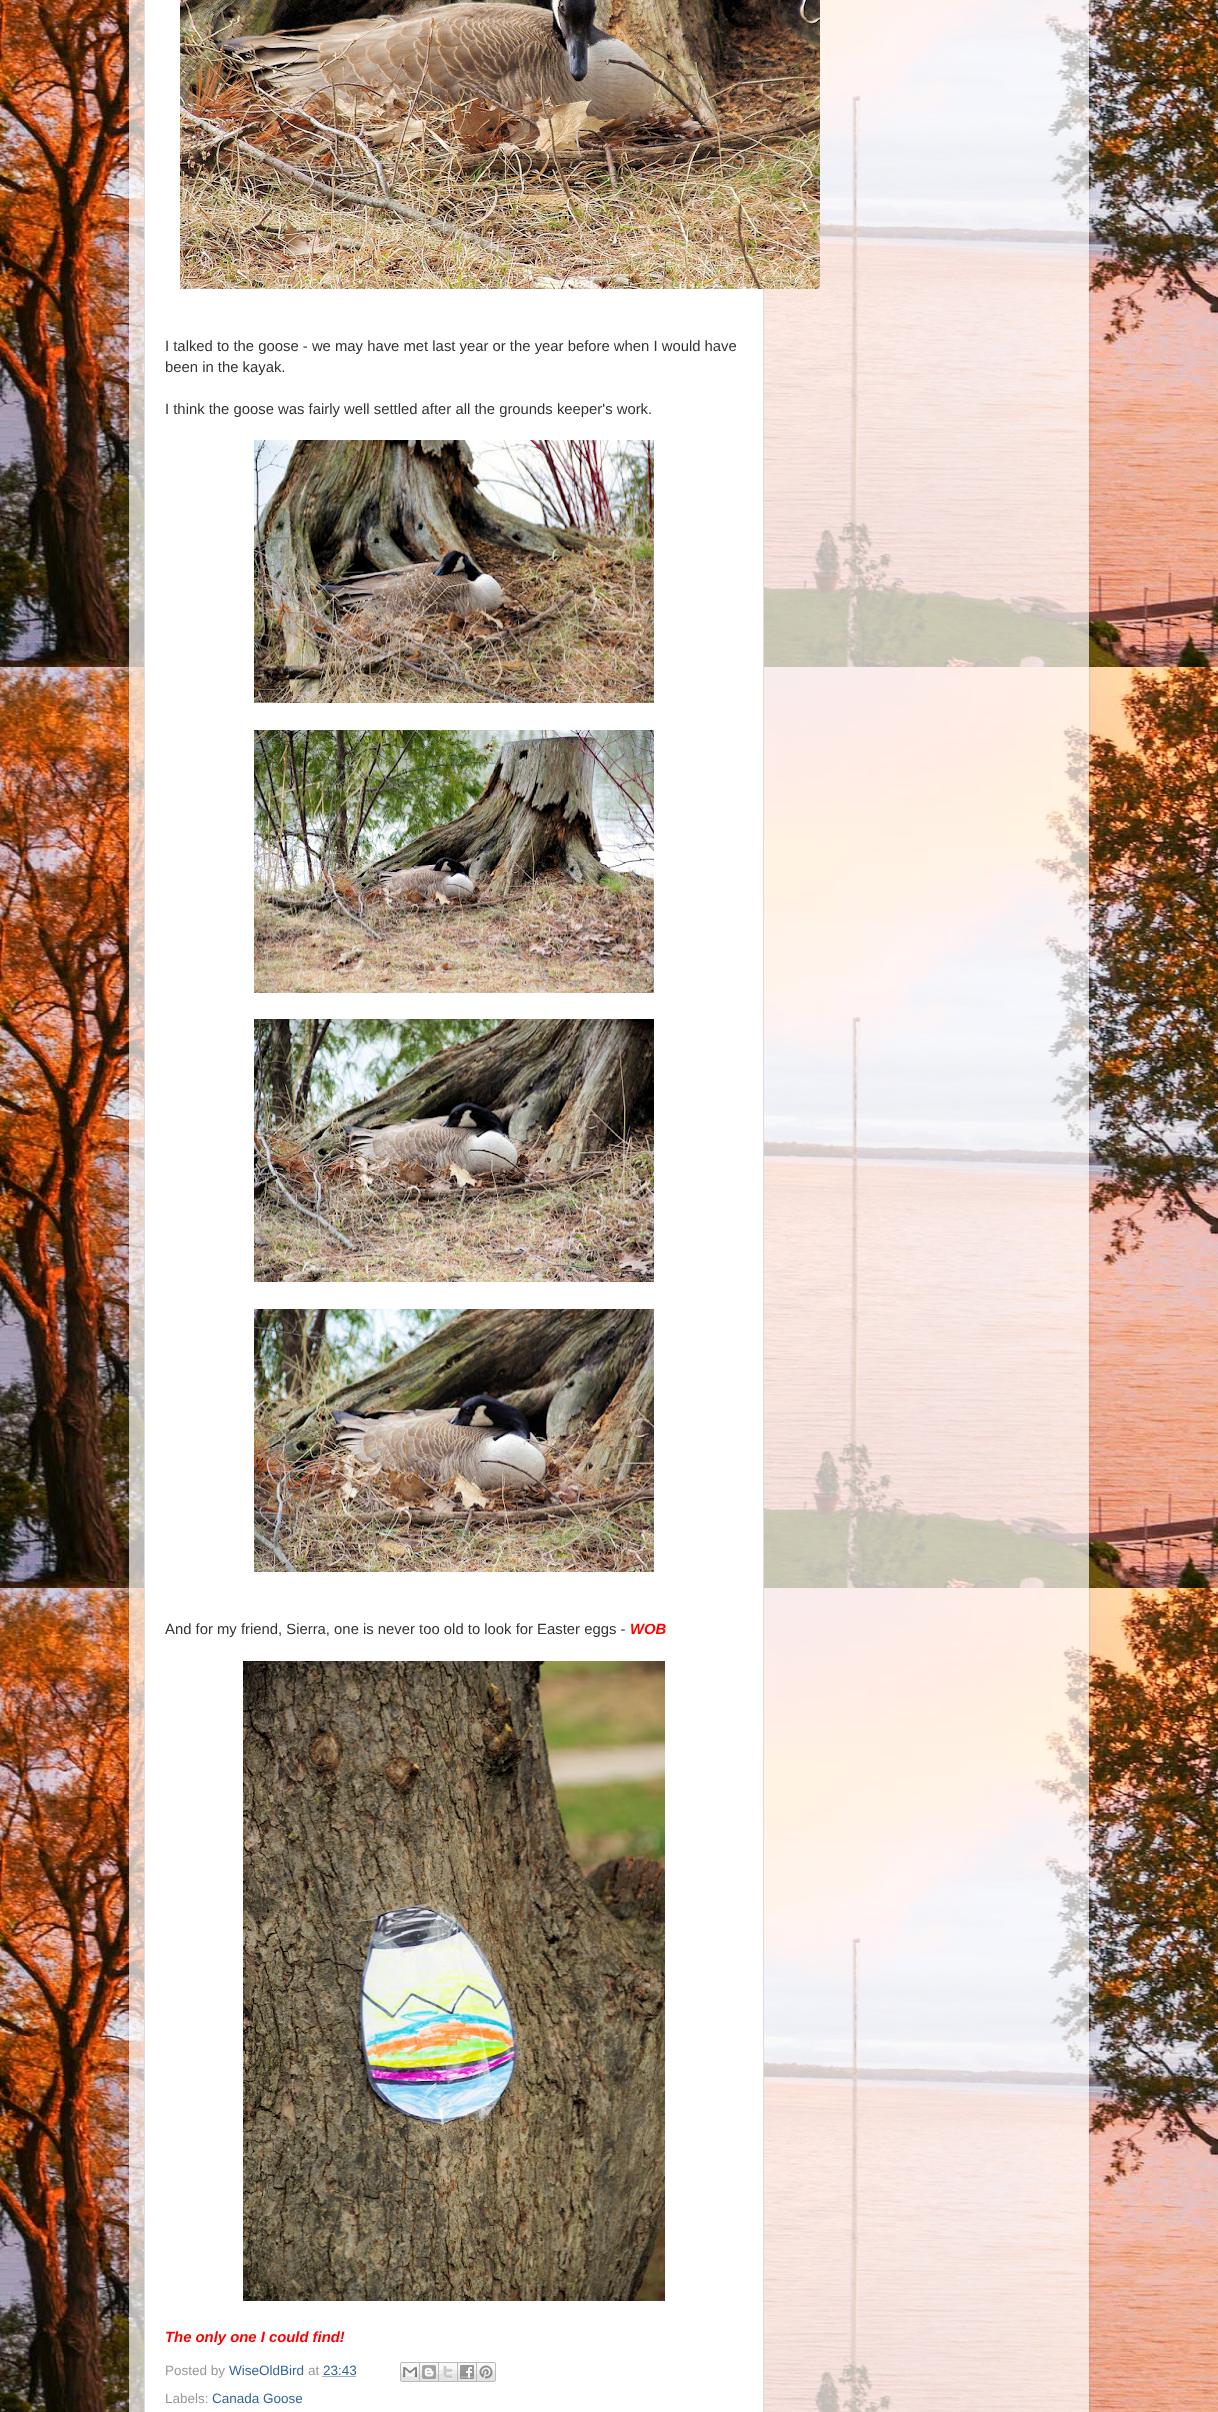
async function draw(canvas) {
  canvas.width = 1218;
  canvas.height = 2412;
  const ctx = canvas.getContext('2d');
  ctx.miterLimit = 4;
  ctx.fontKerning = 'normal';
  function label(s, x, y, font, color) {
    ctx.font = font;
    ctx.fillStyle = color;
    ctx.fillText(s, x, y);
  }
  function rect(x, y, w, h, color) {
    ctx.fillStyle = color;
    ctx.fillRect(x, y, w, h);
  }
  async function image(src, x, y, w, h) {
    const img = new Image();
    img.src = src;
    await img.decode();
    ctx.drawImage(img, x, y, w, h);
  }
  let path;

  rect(0, 0, 1218, 2412, '#fff');
  await image('assets/img1.png', 0, 0, 1218, 2412);
  ctx.save();
  path = new Path2D('M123 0H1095V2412H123ZM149-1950H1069C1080-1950 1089-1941 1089-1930V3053H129V-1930C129-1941 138-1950 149-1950Z');
  ctx.clip(path, 'evenodd');
  ctx.fillStyle = '#00000026';
  ctx.filter = 'blur(1.5px)';
  ctx.beginPath();
  ctx.roundRect(129, -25, 960, 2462, 20);
  ctx.fill();
  ctx.filter = 'none';
  ctx.restore();
  rect(129, 0, 960, 2412, '#ffffffb3');
  ctx.fillStyle = '#fff';
  ctx.beginPath();
  ctx.rect(144.5, -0.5, 619, 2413);
  ctx.fill();
  ctx.strokeStyle = '#ddd';
  ctx.stroke();
  await image('assets/img2.png', 180, 0, 640, 289);
  label('I talked to the goose - we may have met last year or the year before when I would have', 165, 351, '14.85px Liberation Sans', '#333');
  label('been in the kayak.', 165, 372, '14.85px Liberation Sans', '#333');
  label('I think the goose was fairly well settled after all the grounds keeper\'s work.', 165, 414, '14.85px Liberation Sans', '#333');
  await image('assets/img3.png', 254, 440, 400, 263);
  await image('assets/img4.png', 254, 730, 400, 263);
  await image('assets/img5.png', 254, 1019, 400, 263);
  await image('assets/img6.png', 254, 1309, 400, 263);
  label('And for my friend, Sierra, one is never too old to look for Easter eggs -', 165, 1634, '14.85px Liberation Sans', '#333');
  label('WOB', 630, 1634, 'italic bold 14.85px Liberation Sans', '#f00');
  await image('assets/img7.png', 243, 1661, 422, 640);
  label('The only one I could find!', 165, 2342, 'italic bold 14.85px Liberation Sans', '#f00');
  label('Posted by', 165, 2375, '13.5px Liberation Sans', '#999');
  label('WiseOldBird', 229, 2375, '13.5px Liberation Sans', '#369');
  label('at', 308, 2375, '13.5px Liberation Sans', '#999');
  label('23:43', 323, 2375, '13.5px Liberation Sans', '#369');
  path = new Path2D('M322.5 2376.5H356.5');
  ctx.strokeStyle = '#369';
  ctx.setLineDash([1, 1]);
  ctx.stroke(path);
  await image('assets/img8.png', 400, 2362, 20, 20);
  await image('assets/img9.png', 420, 2362, 19, 20);
  await image('assets/img10.png', 439, 2362, 19, 20);
  await image('assets/img11.png', 458, 2362, 19, 20);
  await image('assets/img12.png', 477, 2362, 19, 20);
  label('Labels:', 165, 2403, '13.5px Liberation Sans', '#999');
  label('Canada Goose', 212, 2403, '13.5px Liberation Sans', '#369');
}

draw(document.querySelector('canvas'));
